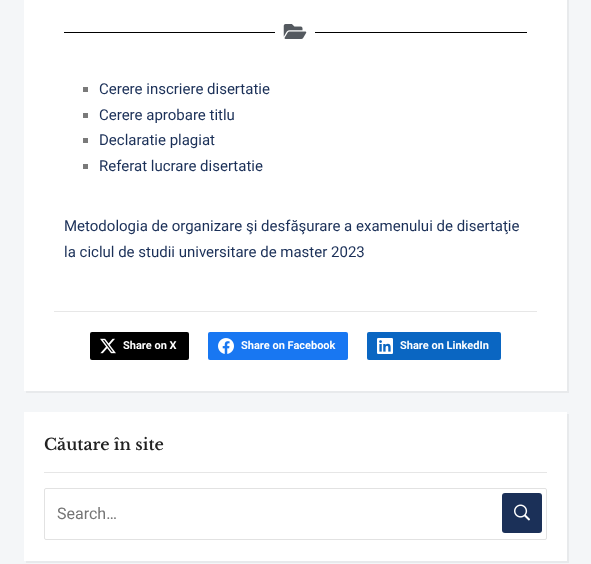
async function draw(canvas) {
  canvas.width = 591;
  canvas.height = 564;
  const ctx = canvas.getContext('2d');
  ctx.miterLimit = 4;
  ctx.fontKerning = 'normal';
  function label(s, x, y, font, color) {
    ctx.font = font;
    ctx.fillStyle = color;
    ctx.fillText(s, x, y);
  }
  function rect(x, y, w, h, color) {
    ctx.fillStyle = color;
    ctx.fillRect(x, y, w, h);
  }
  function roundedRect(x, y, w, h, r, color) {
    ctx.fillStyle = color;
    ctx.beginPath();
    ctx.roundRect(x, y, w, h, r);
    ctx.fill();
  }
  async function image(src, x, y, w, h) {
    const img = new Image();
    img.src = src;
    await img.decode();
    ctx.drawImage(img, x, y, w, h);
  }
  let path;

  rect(0, 0, 591, 564, '#f4f6f8');
  ctx.fillStyle = '#e8eaec';
  path = new Path2D('M26 391V393H569V-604H567V391Z');
  ctx.fill(path);
  rect(24, 0, 543, 391, '#fff');
  rect(64, 32, 211, 1, '#000');
  await image('assets/img1.png', 283, 24, 24, 15);
  rect(315, 32, 212, 1, '#000');
  rect(83, 87, 5, 5, '#7a7a7a');
  label('Cerere inscriere disertatie', 99, 94, '15px Roboto', '#1b3058');
  rect(83, 113, 5, 5, '#7a7a7a');
  label('Cerere aprobare titlu', 99, 120, '15px Roboto', '#1b3058');
  rect(83, 138, 5, 5, '#7a7a7a');
  label('Declaratie plagiat', 99, 145, '15px Roboto', '#1b3058');
  rect(83, 164, 5, 5, '#7a7a7a');
  label('Referat lucrare disertatie', 99, 171, '15px Roboto', '#1b3058');
  label('Metodologia de organizare şi desfăşurare a examenului de disertaţie', 64, 231, '15px Roboto', '#1b3058');
  label('la ciclul de studii universitare de master 2023', 64, 257, '15px Roboto', '#1b3058');
  rect(54, 311, 483, 1, '#e7e7e7');
  roundedRect(90, 332, 99, 28, 2, '#000');
  await image('assets/img2.png', 100, 338, 16, 16);
  label('Share on X', 123, 349, 'bold 11px Roboto', '#fff');
  roundedRect(208, 332, 140, 28, 2, '#1877f2');
  await image('assets/img3.png', 218, 338, 16, 16);
  label('Share on Facebook', 241, 349, 'bold 11px Roboto', '#fff');
  roundedRect(367, 332, 134, 28, 2, '#0a66c2');
  await image('assets/img4.png', 377, 338, 16, 16);
  label('Share on LinkedIn', 400, 349, 'bold 11px Roboto', '#fff');
  ctx.fillStyle = '#e8eaec';
  path = new Path2D('M26 561V563H569V414H567V561Z');
  ctx.fill(path);
  rect(24, 412, 543, 149, '#fff');
  rect(44, 472, 503, 1, '#e6e6e6');
  label('Căutare în site', 44, 450, '600 16px Libre Baskerville', '#222');
  ctx.beginPath();
  ctx.roundRect(44.5, 488.5, 502, 51, 1.5);
  ctx.strokeStyle = '#e2e2e2';
  ctx.stroke();
  label('Search…', 57, 519, '16px Roboto', '#757575');
  roundedRect(502, 493, 40, 40, 3, '#1b3058');
  await image('assets/img5.png', 514, 504, 16, 17);
}

draw(document.querySelector('canvas'));
